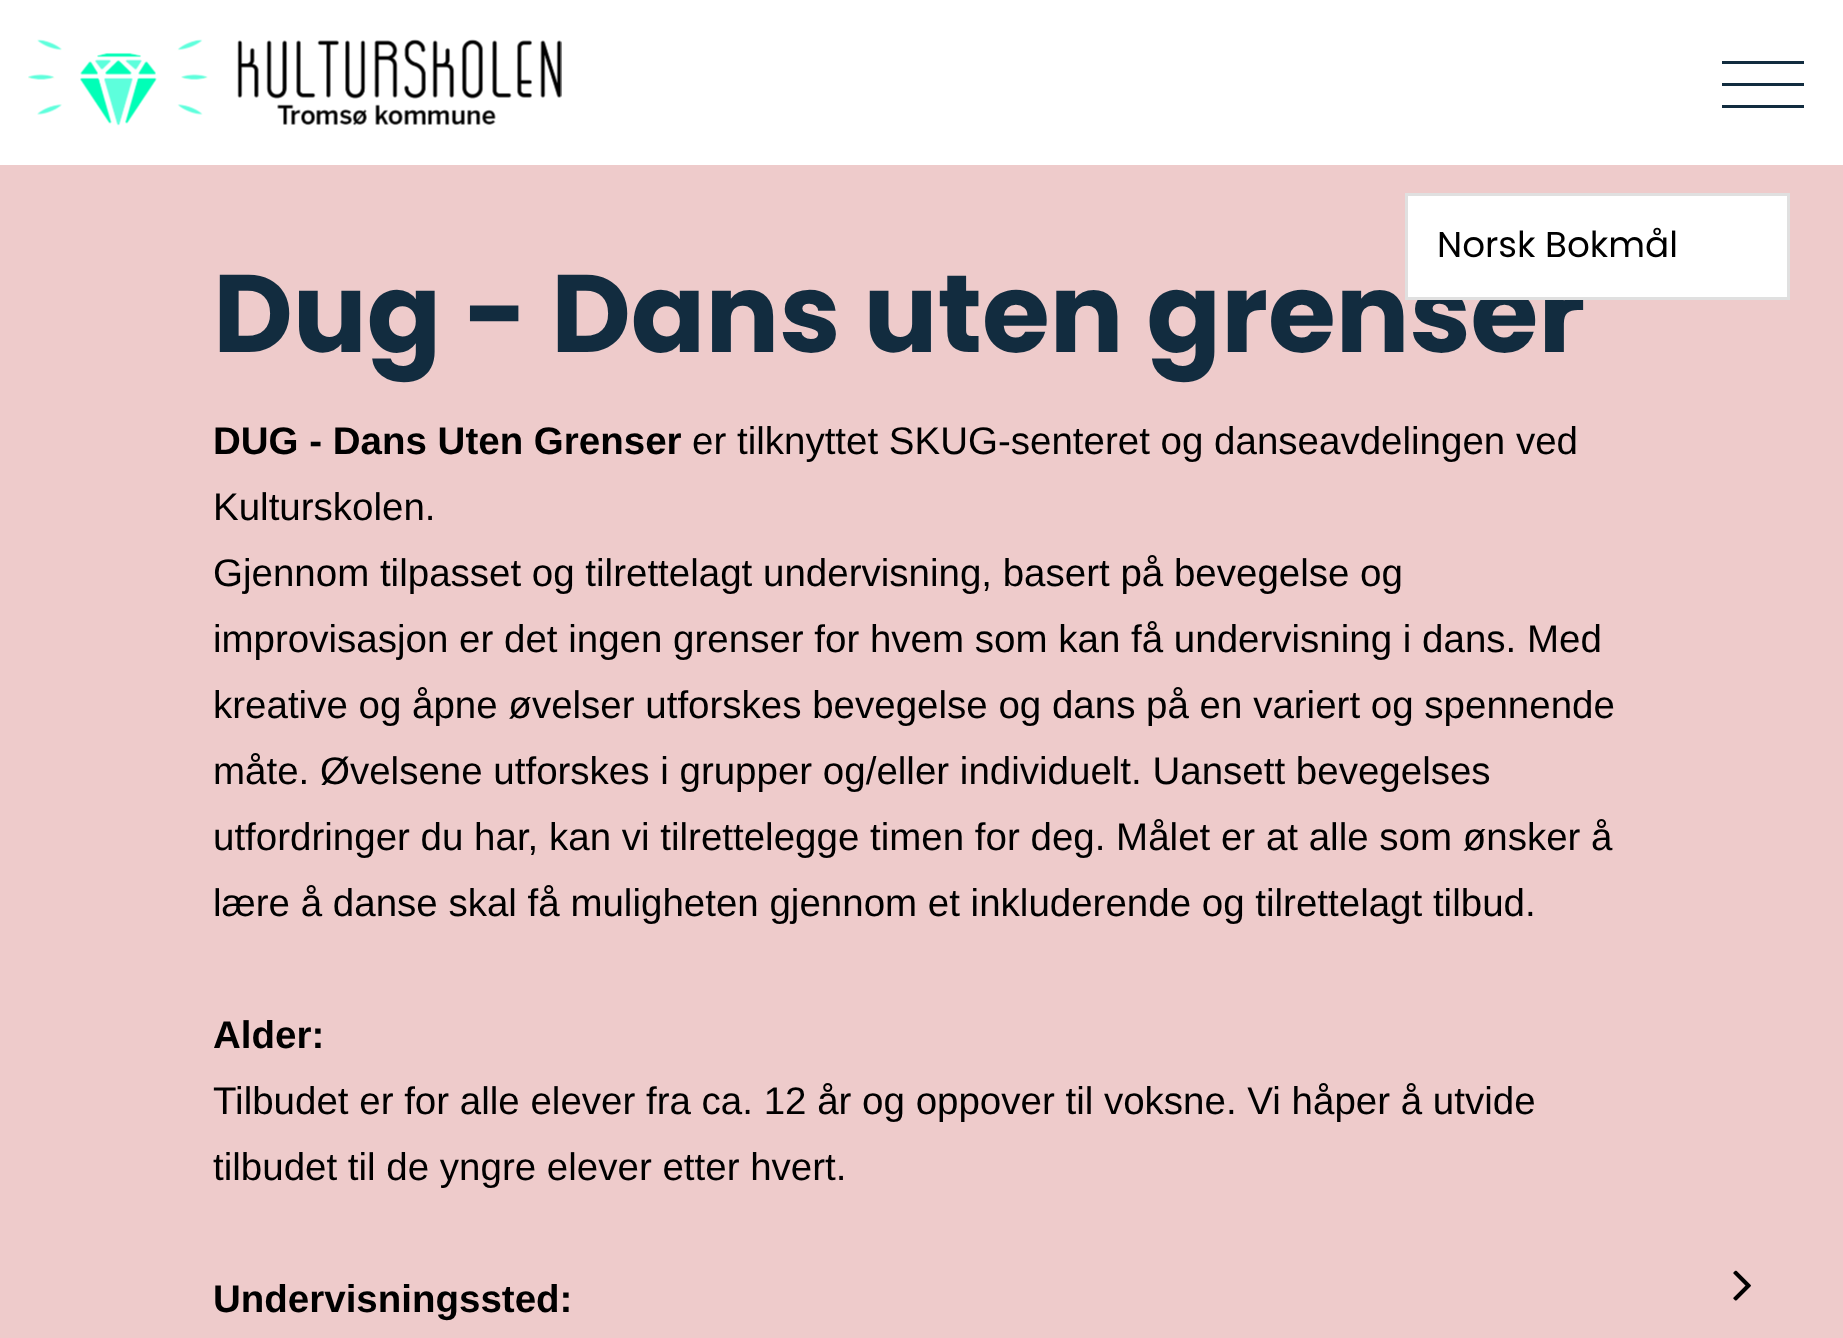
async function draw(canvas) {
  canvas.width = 1843;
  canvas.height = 1338;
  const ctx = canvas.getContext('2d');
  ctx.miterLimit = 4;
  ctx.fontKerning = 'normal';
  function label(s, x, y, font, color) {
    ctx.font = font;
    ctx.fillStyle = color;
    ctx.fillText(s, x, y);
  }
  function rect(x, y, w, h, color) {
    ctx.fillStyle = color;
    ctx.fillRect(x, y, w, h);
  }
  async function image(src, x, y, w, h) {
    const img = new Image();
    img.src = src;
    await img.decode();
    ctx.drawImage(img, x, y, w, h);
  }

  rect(0, 0, 1843, 1338, '#eecbcb');
  ctx.letterSpacing = '-0.2px';
  label('Dug - Dans uten grenser', 213, 352, 'bold 110px Poppins', '#122c3f');
  ctx.fillStyle = '#fff';
  ctx.beginPath();
  ctx.rect(1406.5, 194.5, 382, 104);
  ctx.fill();
  ctx.strokeStyle = '#e0e0e0';
  ctx.lineWidth = 3;
  ctx.stroke();
  ctx.letterSpacing = '0px';
  label('Norsk Bokmål', 1437, 257, '35.75px Poppins', '#000');
  await image('assets/img1.png', 1733, 1270, 18, 31);
  rect(0, 0, 1843, 165, '#fff');
  await image('assets/img2.png', 28, 39, 534, 87);
  rect(1722, 83, 82, 3, '#122c3f');
  rect(1722, 61, 82, 3, '#122c3f');
  rect(1722, 105, 82, 3, '#122c3f');
  label('DUG - Dans Uten Grenser', 213, 454, 'bold 38.5px Liberation Sans', '#000');
  label('er tilknyttet SKUG-senteret og danseavdelingen ved', 692, 454, '38.5px Liberation Sans', '#000');
  label('Kulturskolen.', 213, 520, '38.5px Liberation Sans', '#000');
  label('Gjennom tilpasset og tilrettelagt undervisning, basert på bevegelse og', 213, 586, '38.5px Liberation Sans', '#000');
  label('improvisasjon er det ingen grenser for hvem som kan få undervisning i dans. Med', 213, 652, '38.5px Liberation Sans', '#000');
  label('kreative og åpne øvelser utforskes bevegelse og dans på en variert og spennende', 213, 718, '38.5px Liberation Sans', '#000');
  label('måte. Øvelsene utforskes i grupper og/eller individuelt. Uansett bevegelses', 213, 784, '38.5px Liberation Sans', '#000');
  label('utfordringer du har, kan vi tilrettelegge timen for deg. Målet er at alle som ønsker å', 213, 850, '38.5px Liberation Sans', '#000');
  label('lære å danse skal få muligheten gjennom et inkluderende og tilrettelagt tilbud.', 213, 916, '38.5px Liberation Sans', '#000');
  label('Alder:', 213, 1048, 'bold 38.5px Liberation Sans', '#000');
  label('Tilbudet er for alle elever fra ca. 12 år og oppover til voksne. Vi håper å utvide', 213, 1114, '38.5px Liberation Sans', '#000');
  label('tilbudet til de yngre elever etter hvert.', 213, 1180, '38.5px Liberation Sans', '#000');
  label('Undervisningssted:', 213, 1312, 'bold 38.5px Liberation Sans', '#000');
}

draw(document.querySelector('canvas'));
